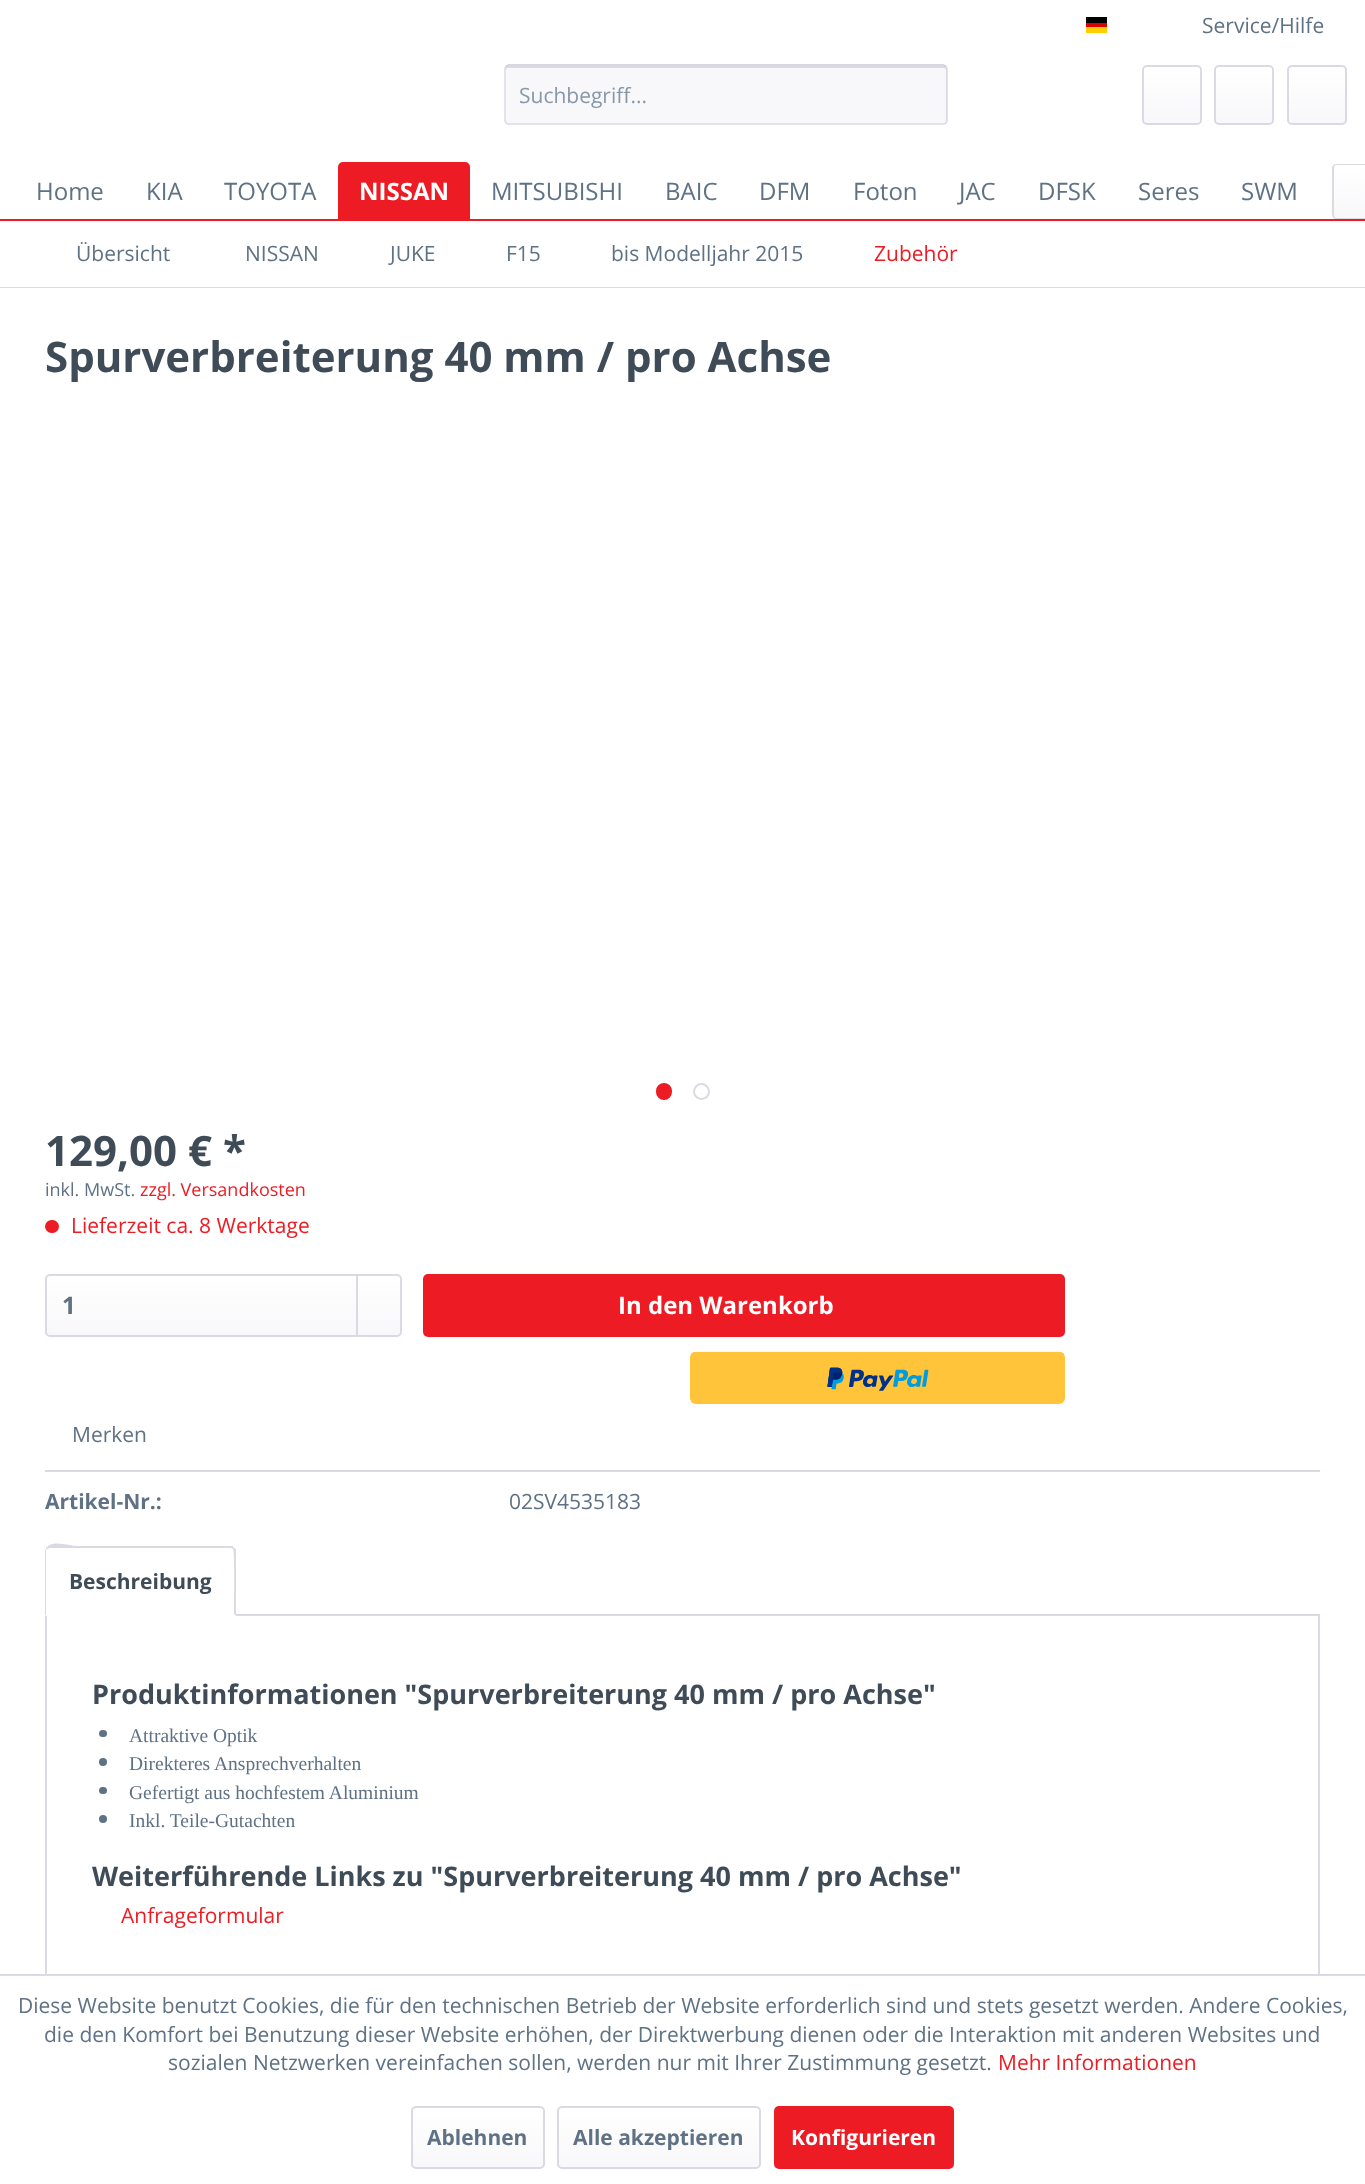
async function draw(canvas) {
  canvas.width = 1365;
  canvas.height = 2184;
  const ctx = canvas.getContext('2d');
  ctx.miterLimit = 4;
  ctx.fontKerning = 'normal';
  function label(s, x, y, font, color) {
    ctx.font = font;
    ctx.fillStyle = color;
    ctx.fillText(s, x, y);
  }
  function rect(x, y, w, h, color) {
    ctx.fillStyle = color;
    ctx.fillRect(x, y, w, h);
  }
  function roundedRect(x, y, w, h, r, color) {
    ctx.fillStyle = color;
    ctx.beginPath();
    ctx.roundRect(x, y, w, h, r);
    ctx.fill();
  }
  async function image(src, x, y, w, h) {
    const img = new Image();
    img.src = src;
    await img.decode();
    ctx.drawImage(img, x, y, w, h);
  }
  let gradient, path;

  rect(0, 0, 1365, 2184, '#fff');
  rect(1086, 17, 21, 6, '#000');
  rect(1086, 23, 21, 4, '#d00');
  rect(1086, 27, 21, 6, '#ffce00');
  label('Service/Hilfe', 1202, 33, '21px Open Sans', '#5f7285');
  roundedRect(504, 65, 444, 60, 5, '#f8f8fa');
  ctx.fillStyle = '#dadae5';
  path = new Path2D('M508 68H944C945 68 946 69 946 70V122C947 122 947 121 947 120V69C947 67 946 66 944 66H509C507 66 506 67 506 69V70C506 69 507 68 508 68Z');
  ctx.fill(path);
  path = new Path2D('M506 66.5L508.5 65H943.5L946 66.5');
  ctx.strokeStyle = '#cbcbdb';
  ctx.lineWidth = 1.5;
  ctx.stroke(path);
  path = new Path2D('M946 66.5C947 67 947 68 947 69V120C947 121 947 122 946 122.5C945.5 123.5 944.5 124 943.5 124H508.5C507.5 124 506.5 123.5 506 122.5C505 122 505 121 505 120V69C505 68 505 67 506 66.5');
  ctx.strokeStyle = '#dadae5';
  ctx.stroke(path);
  label('Suchbegriff...', 519, 103, '21px Open Sans', '#8798a9');
  gradient = ctx.createLinearGradient(1172, 66, 1172, 123);
  gradient.addColorStop(0, '#fff');
  gradient.addColorStop(1, '#f8f8fa');
  ctx.fillStyle = gradient;
  ctx.beginPath();
  ctx.roundRect(1143, 66, 57, 57, 3);
  ctx.fill();
  ctx.beginPath();
  ctx.roundRect(1143, 66, 58, 58, 4);
  ctx.lineWidth = 2;
  ctx.stroke();
  gradient = ctx.createLinearGradient(1244, 66, 1244, 123);
  gradient.addColorStop(0, '#fff');
  gradient.addColorStop(1, '#f8f8fa');
  ctx.fillStyle = gradient;
  ctx.beginPath();
  ctx.roundRect(1215, 66, 57, 57, 3);
  ctx.fill();
  ctx.beginPath();
  ctx.roundRect(1215, 66, 58, 58, 4);
  ctx.stroke();
  gradient = ctx.createLinearGradient(1317, 66, 1317, 123);
  gradient.addColorStop(0, '#fff');
  gradient.addColorStop(1, '#f8f8fa');
  ctx.fillStyle = gradient;
  ctx.beginPath();
  ctx.roundRect(1289, 66, 57, 57, 3);
  ctx.fill();
  ctx.beginPath();
  ctx.roundRect(1288, 66, 58, 58, 4);
  ctx.stroke();
  rect(0, 219, 1365, 2, '#ed1c24');
  label('Home', 36, 200, '24px Open Sans', '#5f7285');
  label('KIA', 146, 200, '24px Open Sans', '#5f7285');
  label('TOYOTA', 224, 200, '24px Open Sans', '#5f7285');
  ctx.fillStyle = '#ed1c24';
  ctx.beginPath();
  ctx.roundRect(338, 162, 132, 57, [5, 5, 0, 0]);
  ctx.fill();
  label('NISSAN', 359, 200, 'bold 24px Open Sans', '#fff');
  label('MITSUBISHI', 491, 200, '24px Open Sans', '#5f7285');
  label('BAIC', 665, 200, '24px Open Sans', '#5f7285');
  label('DFM', 759, 200, '24px Open Sans', '#5f7285');
  label('Foton', 853, 200, '24px Open Sans', '#5f7285');
  label('JAC', 959, 200, '24px Open Sans', '#5f7285');
  label('DFSK', 1038, 200, '24px Open Sans', '#5f7285');
  label('Seres', 1138, 200, '24px Open Sans', '#5f7285');
  label('SWM', 1241, 200, '24px Open Sans', '#5f7285');
  gradient = ctx.createLinearGradient(1349, 165, 1349, 218);
  gradient.addColorStop(0, '#fff');
  gradient.addColorStop(1, '#f8f8fa');
  ctx.fillStyle = gradient;
  ctx.beginPath();
  ctx.roundRect(1334, 165, 31, 53, [3, 0, 0, 3]);
  ctx.fill();
  ctx.fillStyle = '#dadae5';
  path = new Path2D('M1336 164H1365V219H1336C1334 219 1332 217 1332 214V168C1332 166 1334 164 1336 164ZM1336 165H1365V218H1336C1335 218 1334 216 1334 214V168C1334 166 1335 165 1336 165Z');
  ctx.fill(path, 'evenodd');
  rect(0, 287, 1365, 1, '#dadae5');
  label('Übersicht', 76, 261, '21px Open Sans', '#5f7285');
  label('NISSAN', 245, 261, '21px Open Sans', '#5f7285');
  label('JUKE', 390, 261, '21px Open Sans', '#5f7285');
  label('F15', 506, 261, '21px Open Sans', '#5f7285');
  label('bis Modelljahr 2015', 611, 261, '21px Open Sans', '#5f7285');
  label('Zubehör', 874, 261, '21px Open Sans', '#ed1c24');
  label('Spurverbreiterung 40 mm / pro Achse', 45, 372, 'bold 42px Open Sans', '#3f4c58');
  ctx.fillStyle = '#ed1c24';
  ctx.beginPath();
  ctx.roundRect(657, 1084, 14, 15, 7);
  ctx.fill();
  ctx.strokeStyle = '#ed1c24';
  ctx.stroke();
  ctx.beginPath();
  ctx.arc(701.5, 1091.5, 7.5, 0, 2 * Math.PI);
  ctx.strokeStyle = '#dadae5';
  ctx.stroke();
  label('129,00 € *', 45, 1166, 'bold 42px Open Sans', '#3f4c58');
  label('inkl. MwSt.', 45, 1196, '18px Open Sans', '#5f7285');
  label('zzgl. Versandkosten', 140, 1196, '18px Open Sans', '#ed1c24');
  roundedRect(45, 1220, 14, 13, 6.5, '#ed1c24');
  label('Lieferzeit ca. 8 Werktage', 71, 1233, '21px Open Sans', '#ed1c24');
  gradient = ctx.createLinearGradient(224, 1275, 224, 1335);
  gradient.addColorStop(0, '#fff');
  gradient.addColorStop(1, '#f8f8fa');
  ctx.fillStyle = gradient;
  ctx.beginPath();
  ctx.roundRect(47, 1275, 354, 60, 3);
  ctx.fill();
  ctx.beginPath();
  ctx.roundRect(46, 1275, 355, 61, 4);
  ctx.stroke();
  label('1', 62, 1314, 'bold 24px Open Sans', '#5f7285');
  rect(356, 1275, 2, 60, '#dadae5');
  roundedRect(423, 1274, 642, 63, 5, '#ed1c24');
  label('In den Warenkorb', 618, 1314, 'bold 24px Open Sans', '#fff');
  await image('assets/img1.png', 690, 1351, 375, 53);
  rect(45, 1470, 1275, 2, '#dadae5');
  label('Merken', 72, 1442, '21px Open Sans', '#5f7285');
  label('Artikel-Nr.:', 45, 1509, 'bold 21px Open Sans', '#5f7285');
  label('02SV4535183', 509, 1509, '21px Open Sans', '#5f7285');
  ctx.strokeRect(46, 1615, 1273, 360);
  ctx.fillStyle = '#fff';
  ctx.beginPath();
  ctx.roundRect(45, 1547, 191, 69, [5, 5, 0, 0]);
  ctx.fill();
  ctx.fillStyle = '#dadae5';
  path = new Path2D('M50 1548L47 1549L46 1548C53 1539 68 1546 79 1546H233L234 1548L233 1549L231 1548Z');
  ctx.fill(path);
  path = new Path2D('M234 1548L236 1549V1616L234 1614C234 1607 235 1550 233 1549Z');
  ctx.fill(path);
  ctx.fillStyle = '#fff';
  path = new Path2D('M236 1616L234 1614H46L45 1616Z');
  ctx.fill(path);
  ctx.fillStyle = '#dadae5';
  path = new Path2D('M45 1616L46 1614V1551L47 1549L46 1548L45 1551Z');
  ctx.fill(path);
  label('Beschreibung', 69, 1589, 'bold 21px Open Sans', '#3f4c58');
  label('Produktinformationen "Spurverbreiterung 40 mm / pro Achse"', 92, 1704, 'bold 27px Open Sans', '#3f4c58');
  roundedRect(99, 1730, 8, 7, 3.5, '#5f7285');
  label('Attraktive Optik', 129, 1742, '19.5px Liberation Serif', '#5f7285');
  ctx.beginPath();
  ctx.arc(103, 1762, 4, 0, 2 * Math.PI);
  ctx.fill();
  label('Direkteres Ansprechverhalten', 129, 1770, '19.5px Liberation Serif', '#5f7285');
  roundedRect(99, 1787, 8, 7, 3.5, '#5f7285');
  label('Gefertigt aus hochfestem Aluminium', 129, 1799, '19.5px Liberation Serif', '#5f7285');
  ctx.beginPath();
  ctx.arc(103, 1819, 4, 0, 2 * Math.PI);
  ctx.fill();
  label('Inkl. Teile-Gutachten', 129, 1827, '19.5px Liberation Serif', '#5f7285');
  label('Weiterführende Links zu "Spurverbreiterung 40 mm / pro Achse"', 92, 1886, 'bold 27px Open Sans', '#3f4c58');
  label('Anfrageformular', 121, 1923, '21px Open Sans', '#ed1c24');
  rect(0, 1974, 1365, 2, '#dadae5');
  label('Diese Website benutzt Cookies, die für den technischen Betrieb der Website erforderlich sind und stets gesetzt werden. Andere Cookies,', 18, 2013, '21px Open Sans', '#5f7285');
  label('die den Komfort bei Benutzung dieser Website erhöhen, der Direktwerbung dienen oder die Interaktion mit anderen Websites und', 44, 2042, '21px Open Sans', '#5f7285');
  label('sozialen Netzwerken vereinfachen sollen, werden nur mit Ihrer Zustimmung gesetzt.', 168, 2070, '21px Open Sans', '#5f7285');
  label('Mehr Informationen', 998, 2070, '21px Open Sans', '#ed1c24');
  gradient = ctx.createLinearGradient(478, 2108, 478, 2168);
  gradient.addColorStop(0, '#fff');
  gradient.addColorStop(1, '#f8f8fa');
  ctx.fillStyle = gradient;
  ctx.beginPath();
  ctx.roundRect(413, 2108, 130, 60, 3);
  ctx.fill();
  ctx.beginPath();
  ctx.roundRect(412, 2107, 132, 61, 4);
  ctx.stroke();
  label('Ablehnen', 427, 2145, 'bold 21px Open Sans', '#5f7285');
  gradient = ctx.createLinearGradient(659, 2108, 659, 2168);
  gradient.addColorStop(0, '#fff');
  gradient.addColorStop(1, '#f8f8fa');
  ctx.fillStyle = gradient;
  ctx.beginPath();
  ctx.roundRect(558, 2108, 201, 60, 3);
  ctx.fill();
  ctx.beginPath();
  ctx.roundRect(558, 2107, 202, 61, 4);
  ctx.stroke();
  label('Alle akzeptieren', 573, 2145, 'bold 21px Open Sans', '#5f7285');
  roundedRect(774, 2106, 180, 63, 5, '#ed1c24');
  label('Konfigurieren', 791, 2145, 'bold 21px Open Sans', '#fff');
}

draw(document.querySelector('canvas'));
